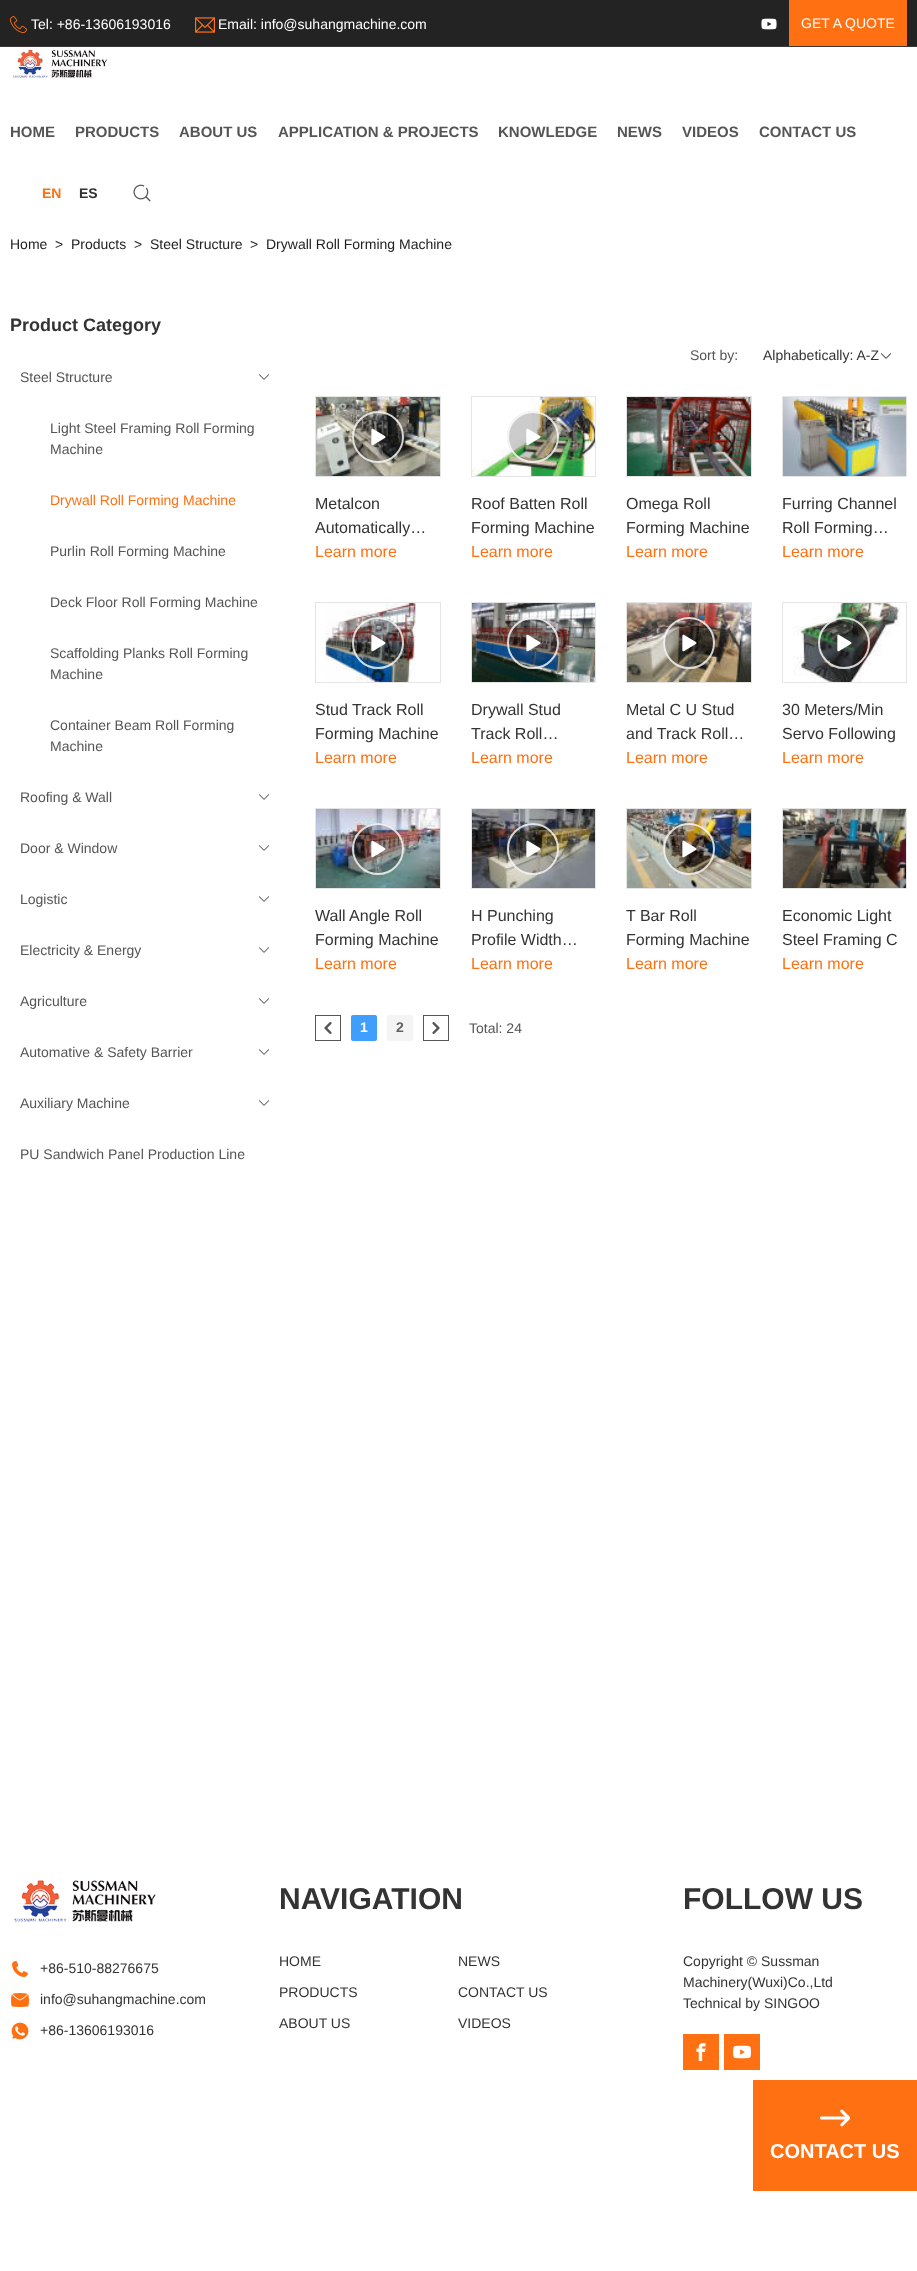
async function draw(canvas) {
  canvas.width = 917;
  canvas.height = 2271;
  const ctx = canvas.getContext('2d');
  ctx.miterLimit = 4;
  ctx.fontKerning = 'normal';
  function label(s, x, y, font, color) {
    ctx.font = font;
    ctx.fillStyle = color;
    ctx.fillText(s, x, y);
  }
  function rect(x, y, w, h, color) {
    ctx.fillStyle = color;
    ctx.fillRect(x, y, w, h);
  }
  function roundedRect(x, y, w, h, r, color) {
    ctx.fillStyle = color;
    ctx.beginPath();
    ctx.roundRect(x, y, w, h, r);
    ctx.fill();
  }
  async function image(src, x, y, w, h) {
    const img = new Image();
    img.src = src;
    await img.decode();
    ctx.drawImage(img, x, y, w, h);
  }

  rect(0, 0, 917, 2271, '#fff');
  rect(0, 0, 917, 46, '#232323');
  rect(0, 46, 917, 1, '#393939');
  await image('assets/img1.png', 10, 16, 17, 17);
  label('Tel: +86-13606193016', 31, 29, '14px Liberation Sans', '#fff');
  await image('assets/img2.png', 195, 17, 20, 16);
  label('Email: info@suhangmachine.com', 218, 29, '14px Liberation Sans', '#fff');
  await image('assets/img3.png', 761, 18, 16, 12);
  rect(789, 0, 118, 46, '#fe7012');
  label('GET A QUOTE', 801, 28, '14px Liberation Sans', '#fff');
  await image('assets/img4.png', 13, 49, 94, 29);
  label('HOME', 10, 137, 'bold 15px Liberation Sans', '#555');
  label('PRODUCTS', 75, 137, 'bold 15px Liberation Sans', '#555');
  label('ABOUT US', 179, 137, 'bold 15px Liberation Sans', '#555');
  label('APPLICATION & PROJECTS', 278, 137, 'bold 15px Liberation Sans', '#555');
  label('KNOWLEDGE', 498, 137, 'bold 15px Liberation Sans', '#555');
  label('NEWS', 617, 137, 'bold 15px Liberation Sans', '#555');
  label('VIDEOS', 682, 137, 'bold 15px Liberation Sans', '#555');
  label('CONTACT US', 759, 137, 'bold 15px Liberation Sans', '#555');
  label('EN', 42, 198, 'bold 14px Liberation Sans', '#fe7012');
  label('ES', 79, 198, 'bold 14px Liberation Sans', '#333');
  await image('assets/img5.png', 133, 184, 18, 18);
  label('Home', 10, 249, '14px Liberation Sans', '#222');
  label('>', 55, 249, '14px Liberation Sans', '#222');
  label('Products', 71, 249, '14px Liberation Sans', '#222');
  label('>', 134, 249, '14px Liberation Sans', '#222');
  label('Steel Structure', 150, 249, '14px Liberation Sans', '#222');
  label('>', 250, 249, '14px Liberation Sans', '#222');
  label('Drywall Roll Forming Machine', 266, 249, '14px Liberation Sans', '#222');
  label('Product Category', 10, 331, 'bold 18px Liberation Sans', '#333');
  label('Steel Structure', 20, 382, '14px Liberation Sans', '#555');
  await image('assets/img6.png', 259, 374, 10, 6);
  label('Light Steel Framing Roll Forming', 50, 433, '14px Liberation Sans', '#555');
  label('Machine', 50, 454, '14px Liberation Sans', '#555');
  label('Drywall Roll Forming Machine', 50, 505, '14px Liberation Sans', '#fe7012');
  label('Purlin Roll Forming Machine', 50, 556, '14px Liberation Sans', '#555');
  label('Deck Floor Roll Forming Machine', 50, 607, '14px Liberation Sans', '#555');
  label('Scaffolding Planks Roll Forming', 50, 658, '14px Liberation Sans', '#555');
  label('Machine', 50, 679, '14px Liberation Sans', '#555');
  label('Container Beam Roll Forming', 50, 730, '14px Liberation Sans', '#555');
  label('Machine', 50, 751, '14px Liberation Sans', '#555');
  label('Roofing & Wall', 20, 802, '14px Liberation Sans', '#555');
  await image('assets/img6.png', 259, 794, 10, 6);
  label('Door & Window', 20, 853, '14px Liberation Sans', '#555');
  await image('assets/img6.png', 259, 845, 10, 6);
  label('Logistic', 20, 904, '14px Liberation Sans', '#555');
  await image('assets/img6.png', 259, 896, 10, 6);
  label('Electricity & Energy', 20, 955, '14px Liberation Sans', '#555');
  await image('assets/img6.png', 259, 947, 10, 6);
  label('Agriculture', 20, 1006, '14px Liberation Sans', '#555');
  await image('assets/img6.png', 259, 998, 10, 6);
  label('Automative & Safety Barrier', 20, 1057, '14px Liberation Sans', '#555');
  await image('assets/img6.png', 259, 1049, 10, 6);
  label('Auxiliary Machine', 20, 1108, '14px Liberation Sans', '#555');
  await image('assets/img6.png', 259, 1100, 10, 6);
  label('PU Sandwich Panel Production Line', 20, 1159, '14px Liberation Sans', '#555');
  label('Sort by:', 690, 360, '14px Liberation Sans', '#555');
  label('Alphabetically: A-Z', 763, 360, '14px Liberation Sans', '#333');
  await image('assets/img7.png', 880, 353, 11, 6);
  ctx.strokeStyle = '#e5e5e5';
  ctx.strokeRect(315.5, 396.5, 125, 80);
  await image('assets/img8.png', 316, 397, 124, 79);
  ctx.fillStyle = '#00000033';
  ctx.beginPath();
  ctx.arc(378, 437, 26, 0, 2 * Math.PI);
  ctx.fill();
  ctx.beginPath();
  ctx.arc(378, 437, 25, 0, 2 * Math.PI);
  ctx.strokeStyle = '#ffffffcc';
  ctx.lineWidth = 2;
  ctx.stroke();
  await image('assets/img9.png', 371, 428, 15, 18);
  label('Metalcon', 315, 509, '16px Liberation Sans', '#333');
  label('Automatically…', 315, 533, '16px Liberation Sans', '#333');
  label('Learn more', 315, 557, '16px Liberation Sans', '#fe7012');
  ctx.strokeStyle = '#e5e5e5';
  ctx.lineWidth = 1;
  ctx.strokeRect(471.5, 396.5, 124, 80);
  await image('assets/img10.png', 472, 397, 123, 79);
  ctx.fillStyle = '#00000033';
  ctx.beginPath();
  ctx.arc(533, 437, 26, 0, 2 * Math.PI);
  ctx.fill();
  ctx.beginPath();
  ctx.arc(533, 437, 25, 0, 2 * Math.PI);
  ctx.strokeStyle = '#ffffffcc';
  ctx.lineWidth = 2;
  ctx.stroke();
  await image('assets/img11.png', 526, 428, 15, 18);
  label('Roof Batten Roll', 471, 509, '16px Liberation Sans', '#333');
  label('Forming Machine', 471, 533, '16px Liberation Sans', '#333');
  label('Learn more', 471, 557, '16px Liberation Sans', '#fe7012');
  ctx.strokeStyle = '#e5e5e5';
  ctx.lineWidth = 1;
  ctx.strokeRect(626.5, 396.5, 125, 80);
  await image('assets/img12.png', 627, 397, 124, 79);
  label('Omega Roll', 626, 509, '16px Liberation Sans', '#333');
  label('Forming Machine', 626, 533, '16px Liberation Sans', '#333');
  label('Learn more', 626, 557, '16px Liberation Sans', '#fe7012');
  ctx.strokeRect(782.5, 396.5, 124, 80);
  await image('assets/img13.png', 783, 397, 123, 79);
  label('Furring Channel', 782, 509, '16px Liberation Sans', '#333');
  label('Roll Forming…', 782, 533, '16px Liberation Sans', '#333');
  label('Learn more', 782, 557, '16px Liberation Sans', '#fe7012');
  ctx.strokeRect(315.5, 602.5, 125, 80);
  await image('assets/img14.png', 325, 603, 91, 79);
  ctx.fillStyle = '#00000033';
  ctx.beginPath();
  ctx.arc(378, 643, 26, 0, 2 * Math.PI);
  ctx.fill();
  ctx.beginPath();
  ctx.arc(378, 643, 25, 0, 2 * Math.PI);
  ctx.strokeStyle = '#ffffffcc';
  ctx.lineWidth = 2;
  ctx.stroke();
  await image('assets/img15.png', 371, 634, 15, 18);
  label('Stud Track Roll', 315, 715, '16px Liberation Sans', '#333');
  label('Forming Machine', 315, 739, '16px Liberation Sans', '#333');
  label('Learn more', 315, 763, '16px Liberation Sans', '#fe7012');
  ctx.strokeStyle = '#e5e5e5';
  ctx.lineWidth = 1;
  ctx.strokeRect(471.5, 602.5, 124, 80);
  await image('assets/img16.png', 472, 603, 123, 79);
  ctx.fillStyle = '#00000033';
  ctx.beginPath();
  ctx.arc(533, 643, 26, 0, 2 * Math.PI);
  ctx.fill();
  ctx.beginPath();
  ctx.arc(533, 643, 25, 0, 2 * Math.PI);
  ctx.strokeStyle = '#ffffffcc';
  ctx.lineWidth = 2;
  ctx.stroke();
  await image('assets/img17.png', 526, 634, 15, 18);
  label('Drywall Stud', 471, 715, '16px Liberation Sans', '#333');
  label('Track Roll…', 471, 739, '16px Liberation Sans', '#333');
  label('Learn more', 471, 763, '16px Liberation Sans', '#fe7012');
  ctx.strokeStyle = '#e5e5e5';
  ctx.lineWidth = 1;
  ctx.strokeRect(626.5, 602.5, 125, 80);
  await image('assets/img18.png', 627, 603, 124, 79);
  ctx.fillStyle = '#00000033';
  ctx.beginPath();
  ctx.arc(689, 643, 26, 0, 2 * Math.PI);
  ctx.fill();
  ctx.beginPath();
  ctx.arc(689, 643, 25, 0, 2 * Math.PI);
  ctx.strokeStyle = '#ffffffcc';
  ctx.lineWidth = 2;
  ctx.stroke();
  await image('assets/img19.png', 682, 634, 15, 18);
  label('Metal C U Stud', 626, 715, '16px Liberation Sans', '#333');
  label('and Track Roll…', 626, 739, '16px Liberation Sans', '#333');
  label('Learn more', 626, 763, '16px Liberation Sans', '#fe7012');
  ctx.strokeStyle = '#e5e5e5';
  ctx.lineWidth = 1;
  ctx.strokeRect(782.5, 602.5, 124, 80);
  await image('assets/img20.png', 793, 603, 108, 79);
  ctx.fillStyle = '#00000033';
  ctx.beginPath();
  ctx.arc(844, 643, 26, 0, 2 * Math.PI);
  ctx.fill();
  ctx.beginPath();
  ctx.arc(844, 643, 25, 0, 2 * Math.PI);
  ctx.strokeStyle = '#ffffffcc';
  ctx.lineWidth = 2;
  ctx.stroke();
  await image('assets/img21.png', 837, 634, 15, 18);
  label('30 Meters/Min', 782, 715, '16px Liberation Sans', '#333');
  label('Servo Following', 782, 739, '16px Liberation Sans', '#333');
  label('Learn more', 782, 763, '16px Liberation Sans', '#fe7012');
  ctx.strokeStyle = '#e5e5e5';
  ctx.lineWidth = 1;
  ctx.strokeRect(315.5, 808.5, 125, 80);
  await image('assets/img22.png', 316, 809, 124, 79);
  ctx.fillStyle = '#00000033';
  ctx.beginPath();
  ctx.arc(378, 849, 26, 0, 2 * Math.PI);
  ctx.fill();
  ctx.beginPath();
  ctx.arc(378, 849, 25, 0, 2 * Math.PI);
  ctx.strokeStyle = '#ffffffcc';
  ctx.lineWidth = 2;
  ctx.stroke();
  await image('assets/img23.png', 371, 840, 15, 18);
  label('Wall Angle Roll', 315, 921, '16px Liberation Sans', '#333');
  label('Forming Machine', 315, 945, '16px Liberation Sans', '#333');
  label('Learn more', 315, 969, '16px Liberation Sans', '#fe7012');
  ctx.strokeStyle = '#e5e5e5';
  ctx.lineWidth = 1;
  ctx.strokeRect(471.5, 808.5, 124, 80);
  await image('assets/img24.png', 472, 809, 123, 79);
  ctx.fillStyle = '#00000033';
  ctx.beginPath();
  ctx.arc(533, 849, 26, 0, 2 * Math.PI);
  ctx.fill();
  ctx.beginPath();
  ctx.arc(533, 849, 25, 0, 2 * Math.PI);
  ctx.strokeStyle = '#ffffffcc';
  ctx.lineWidth = 2;
  ctx.stroke();
  await image('assets/img25.png', 526, 840, 15, 18);
  label('H Punching', 471, 921, '16px Liberation Sans', '#333');
  label('Profile Width…', 471, 945, '16px Liberation Sans', '#333');
  label('Learn more', 471, 969, '16px Liberation Sans', '#fe7012');
  ctx.strokeStyle = '#e5e5e5';
  ctx.lineWidth = 1;
  ctx.strokeRect(626.5, 808.5, 125, 80);
  await image('assets/img26.png', 627, 809, 124, 79);
  ctx.fillStyle = '#00000033';
  ctx.beginPath();
  ctx.arc(689, 849, 26, 0, 2 * Math.PI);
  ctx.fill();
  ctx.beginPath();
  ctx.arc(689, 849, 25, 0, 2 * Math.PI);
  ctx.strokeStyle = '#ffffffcc';
  ctx.lineWidth = 2;
  ctx.stroke();
  await image('assets/img27.png', 682, 840, 15, 18);
  label('T Bar Roll', 626, 921, '16px Liberation Sans', '#333');
  label('Forming Machine', 626, 945, '16px Liberation Sans', '#333');
  label('Learn more', 626, 969, '16px Liberation Sans', '#fe7012');
  ctx.strokeStyle = '#e5e5e5';
  ctx.lineWidth = 1;
  ctx.strokeRect(782.5, 808.5, 124, 80);
  await image('assets/img28.png', 783, 809, 123, 79);
  label('Economic Light', 782, 921, '16px Liberation Sans', '#333');
  label('Steel Framing C', 782, 945, '16px Liberation Sans', '#333');
  label('Learn more', 782, 969, '16px Liberation Sans', '#fe7012');
  ctx.strokeStyle = '#555';
  ctx.strokeRect(315.5, 1015.5, 25, 25);
  await image('assets/img29.png', 324, 1022, 8, 12);
  roundedRect(351, 1015, 26, 26, 2, '#409eff');
  label('1', 360, 1032, 'bold 14px Liberation Sans', '#fff');
  roundedRect(387, 1015, 26, 26, 2, '#f4f4f5');
  label('2', 396, 1032, 'bold 14px Liberation Sans', '#606266');
  ctx.strokeRect(423.5, 1015.5, 25, 25);
  await image('assets/img30.png', 432, 1022, 8, 12);
  label('Total: 24', 469, 1033, '14px Liberation Sans', '#555');
  await image('assets/img31.png', 14, 1880, 142, 42);
  await image('assets/img32.png', 12, 1961, 16, 16);
  label('+86-510-88276675', 40, 1973, '14px Liberation Sans', '#333');
  await image('assets/img33.png', 11, 1993, 18, 14);
  label('info@suhangmachine.com', 40, 2004, '14px Liberation Sans', '#333');
  await image('assets/img34.png', 11, 2022, 18, 18);
  label('+86-13606193016', 40, 2035, '14px Liberation Sans', '#333');
  label('NAVIGATION', 279, 1909, 'bold 30px Liberation Sans', '#333');
  label('HOME', 279, 1966, '14px Liberation Sans', '#333');
  label('NEWS', 458, 1966, '14px Liberation Sans', '#333');
  label('PRODUCTS', 279, 1997, '14px Liberation Sans', '#333');
  label('CONTACT US', 458, 1997, '14px Liberation Sans', '#333');
  label('ABOUT US', 279, 2028, '14px Liberation Sans', '#333');
  label('VIDEOS', 458, 2028, '14px Liberation Sans', '#333');
  label('FOLLOW US', 683, 1909, 'bold 30px Liberation Sans', '#333');
  label('Copyright © Sussman', 683, 1966, '14px Liberation Sans', '#333');
  label('Machinery(Wuxi)Co.,Ltd', 683, 1987, '14px Liberation Sans', '#333');
  label('Technical by SINGOO', 683, 2008, '14px Liberation Sans', '#333');
  rect(683, 2034, 36, 36, '#fe7012');
  await image('assets/img35.png', 696, 2043, 10, 18);
  rect(724, 2034, 36, 36, '#fe7012');
  await image('assets/img36.png', 733, 2045, 18, 14);
  rect(753, 2080, 164, 111, '#fe7012');
  await image('assets/img37.png', 820, 2109, 30, 18);
  label('CONTACT US', 770, 2158, 'bold 20px Liberation Sans', '#fff');
}

draw(document.querySelector('canvas'));
